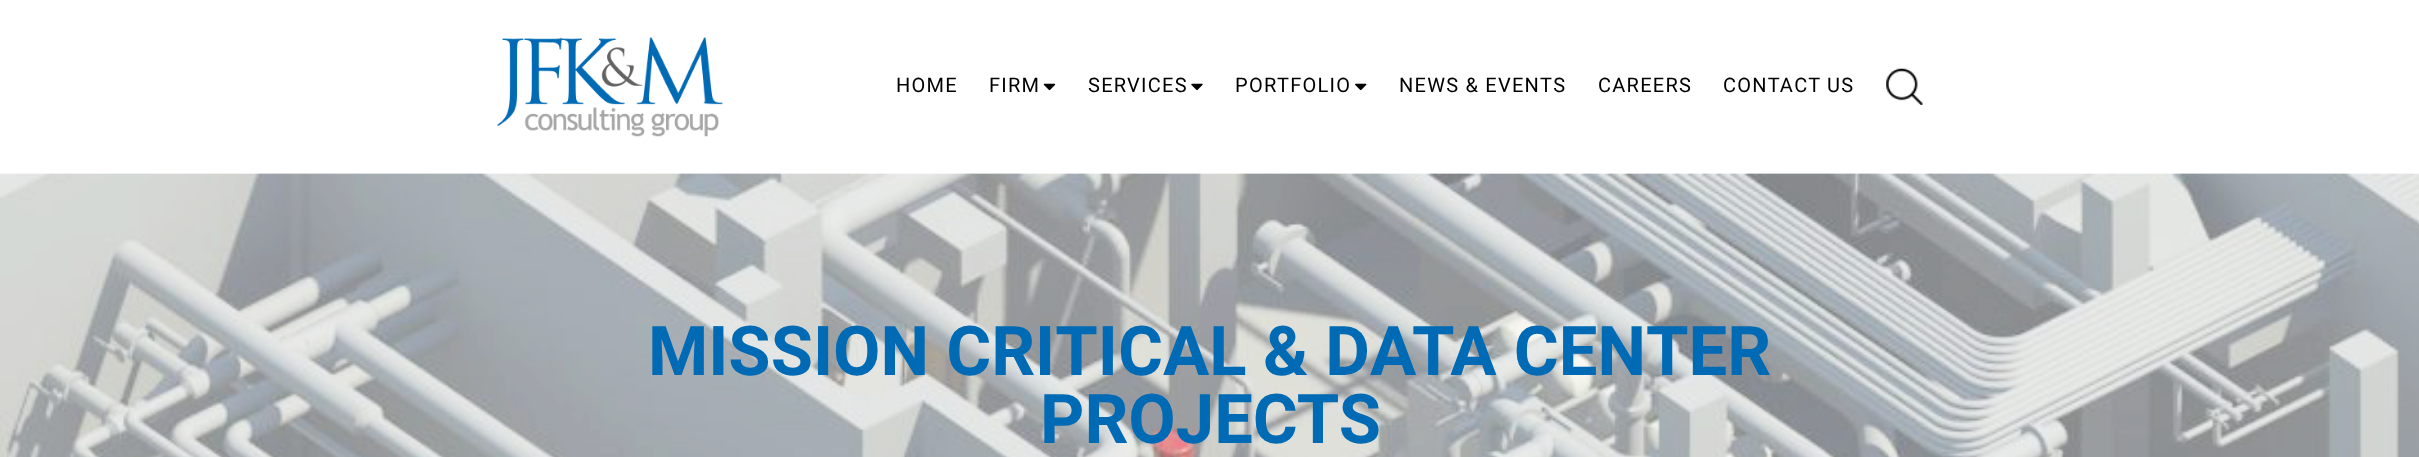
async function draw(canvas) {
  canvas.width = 2419;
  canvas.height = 457;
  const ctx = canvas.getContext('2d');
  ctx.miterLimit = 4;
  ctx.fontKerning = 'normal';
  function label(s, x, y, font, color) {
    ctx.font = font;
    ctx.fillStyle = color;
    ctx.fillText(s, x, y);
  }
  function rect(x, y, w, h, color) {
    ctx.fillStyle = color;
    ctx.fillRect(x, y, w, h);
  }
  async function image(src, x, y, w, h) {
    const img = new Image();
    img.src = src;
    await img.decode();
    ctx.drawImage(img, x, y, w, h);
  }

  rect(0, 0, 2419, 457, '#fff');
  await image('assets/img1.png', 497, 37, 226, 100);
  ctx.letterSpacing = '1.25px';
  label('HOME', 896, 92, '20px Heebo', '#000');
  label('FIRM', 989, 92, '20px Heebo', '#000');
  await image('assets/img2.png', 1043, 83, 13, 8);
  label('SERVICES', 1088, 92, '20px Heebo', '#000');
  await image('assets/img3.png', 1191, 83, 12, 8);
  label('PORTFOLIO', 1235, 92, '20px Heebo', '#000');
  await image('assets/img4.png', 1355, 83, 12, 8);
  label('NEWS & EVENTS', 1399, 92, '20px Heebo', '#000');
  label('CAREERS', 1598, 92, '20px Heebo', '#000');
  label('CONTACT US', 1723, 92, '20px Heebo', '#000');
  await image('assets/img5.png', 1886, 68, 37, 37);
  await image('assets/img6.png', 0, 173, 2419, 284);
  ctx.letterSpacing = '0px';
  label('MISSION CRITICAL & DATA CENTER', 648, 375, 'bold 68.75px Heebo', '#006ab4');
  label('PROJECTS', 1040, 443, 'bold 68.75px Heebo', '#006ab4');
}

draw(document.querySelector('canvas'));
